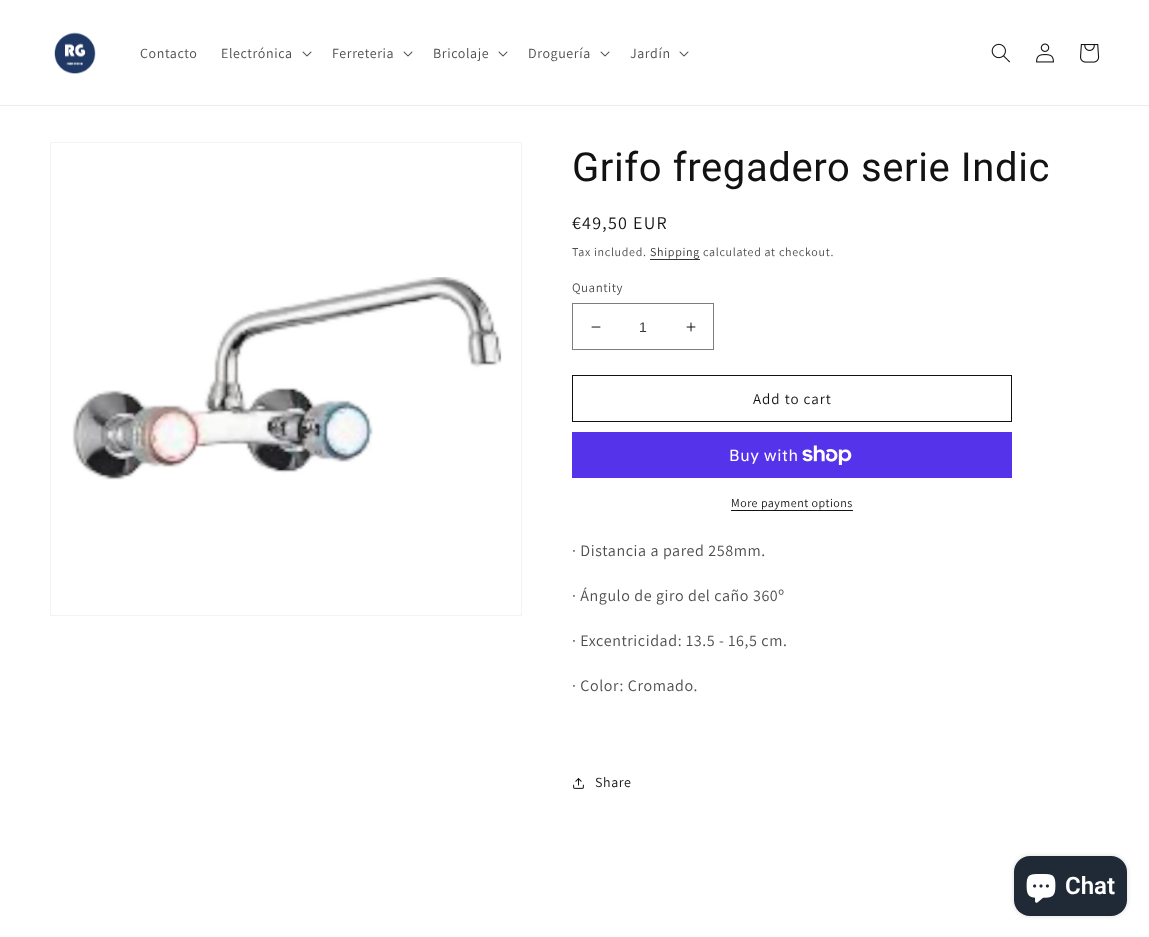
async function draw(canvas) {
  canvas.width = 1149;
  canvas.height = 937;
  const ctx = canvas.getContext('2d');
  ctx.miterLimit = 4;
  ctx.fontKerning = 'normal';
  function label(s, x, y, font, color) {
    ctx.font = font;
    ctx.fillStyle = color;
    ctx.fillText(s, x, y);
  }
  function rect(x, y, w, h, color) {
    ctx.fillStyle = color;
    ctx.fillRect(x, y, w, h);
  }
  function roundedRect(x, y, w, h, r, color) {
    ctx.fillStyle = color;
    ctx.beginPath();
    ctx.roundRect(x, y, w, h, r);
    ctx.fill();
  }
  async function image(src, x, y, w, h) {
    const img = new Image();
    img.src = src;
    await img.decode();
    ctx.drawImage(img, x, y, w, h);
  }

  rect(0, 0, 1149, 937, '#fff');
  rect(0, 105, 1149, 1, '#ececec');
  await image('assets/img1.png', 54, 32, 42, 42);
  ctx.letterSpacing = '0.6px';
  label('Contacto', 140, 58, '14px Assistant', '#4d4d4d');
  label('Electrónica', 221, 58, '14px Assistant', '#4d4d4d');
  await image('assets/img2.png', 302, 51, 10, 6);
  label('Ferreteria', 332, 58, '14px Assistant', '#4d4d4d');
  await image('assets/img2.png', 403, 51, 10, 6);
  label('Bricolaje', 433, 58, '14px Assistant', '#4d4d4d');
  await image('assets/img2.png', 498, 51, 10, 6);
  label('Droguería', 528, 58, '14px Assistant', '#4d4d4d');
  await image('assets/img2.png', 600, 51, 10, 6);
  label('Jardín', 630, 58, '14px Assistant', '#4d4d4d');
  await image('assets/img2.png', 679, 51, 10, 6);
  await image('assets/img3.png', 991, 43, 19, 20);
  await image('assets/img4.png', 1036, 43, 18, 20);
  await image('assets/img5.png', 1080, 44, 20, 19);
  ctx.strokeStyle = '#f3f3f3';
  ctx.strokeRect(50.5, 142.5, 471, 473);
  await image('assets/img6.png', 72, 277, 430, 203);
  label('Grifo fregadero serie Indic', 572, 181, '40px Roboto', '#121212');
  ctx.letterSpacing = '1.25px';
  label('€49,50 EUR', 572, 229, '18px Assistant', '#121212');
  ctx.letterSpacing = '0.7px';
  label('Tax included.', 572, 256, '12px Assistant', '#4d4d4d');
  label('Shipping', 650, 256, '12px Assistant', '#363636');
  rect(650, 259, 50, 1, '#363636');
  label('calculated at checkout.', 703, 256, '12px Assistant', '#4d4d4d');
  ctx.letterSpacing = '0.5px';
  label('Quantity', 572, 292, '13px Assistant', '#4d4d4d');
  await image('assets/img7.png', 591, 326, 10, 2);
  await image('assets/img8.png', 686, 322, 10, 10);
  ctx.strokeStyle = '#7d7d7d';
  ctx.strokeRect(572.5, 303.5, 141, 46);
  ctx.letterSpacing = '0px';
  label('1', 639, 332, '14px Liberation Sans', '#363636');
  ctx.strokeStyle = '#121212';
  ctx.strokeRect(572.5, 375.5, 439, 46);
  ctx.letterSpacing = '1px';
  label('Add to cart', 753, 404, '15px Assistant', '#121212');
  rect(572, 432, 440, 46, '#5433eb');
  ctx.letterSpacing = '0.6px';
  label('Buy with', 729, 461, '16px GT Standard', '#fff');
  await image('assets/img9.png', 802, 445, 50, 20);
  ctx.letterSpacing = '0.5px';
  label('More payment options', 731, 507, '12px Assistant', '#121212');
  rect(731, 510, 122, 1, '#121212');
  ctx.letterSpacing = '0.6px';
  label('· Distancia a pared 258mm.', 572, 556, '16px Assistant', '#4d4d4d');
  label('· Ángulo de giro del caño 360º', 572, 601, '16px Assistant', '#4d4d4d');
  label('· Excentricidad: 13.5 - 16,5 cm.', 572, 646, '16px Assistant', '#4d4d4d');
  label('· Color: Cromado.', 572, 691, '16px Assistant', '#4d4d4d');
  await image('assets/img10.png', 573, 778, 11, 11);
  label('Share', 595, 787, '14px Assistant', '#121212');
  ctx.fillStyle = '#00000026';
  ctx.filter = 'blur(2.5px)';
  ctx.beginPath();
  ctx.roundRect(1014, 856, 113, 60, 16);
  ctx.fill();
  ctx.filter = 'none';
  roundedRect(1014, 856, 113, 60, 16, '#202a36');
  await image('assets/img11.png', 1026, 874, 30, 29);
  ctx.letterSpacing = '0px';
  label('Chat', 1065, 894, '600 24px Roboto', '#fff');
}

draw(document.querySelector('canvas'));
